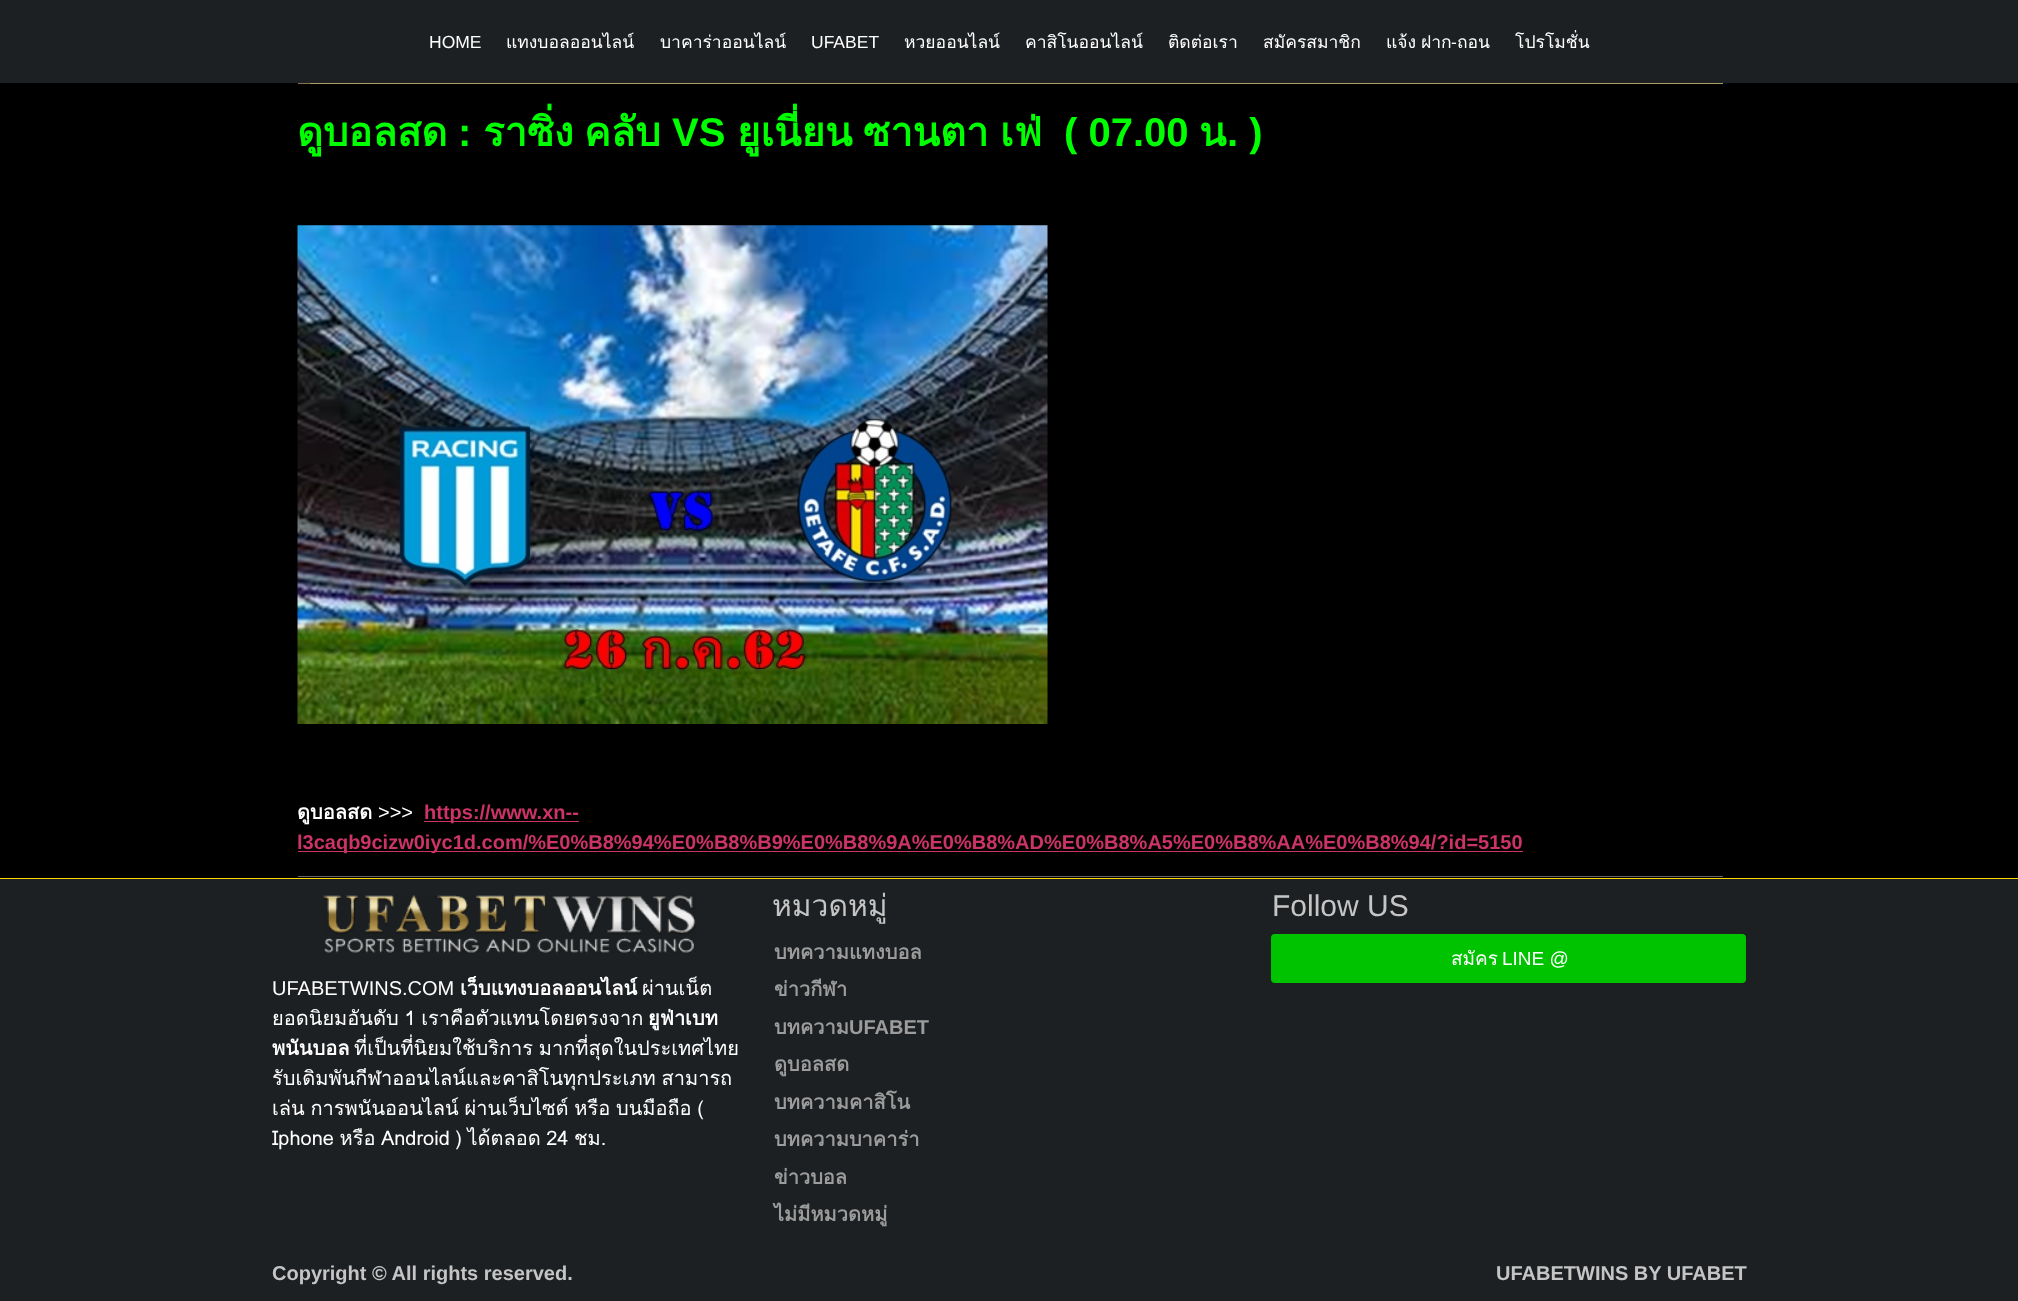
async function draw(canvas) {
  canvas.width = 2018;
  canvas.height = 1301;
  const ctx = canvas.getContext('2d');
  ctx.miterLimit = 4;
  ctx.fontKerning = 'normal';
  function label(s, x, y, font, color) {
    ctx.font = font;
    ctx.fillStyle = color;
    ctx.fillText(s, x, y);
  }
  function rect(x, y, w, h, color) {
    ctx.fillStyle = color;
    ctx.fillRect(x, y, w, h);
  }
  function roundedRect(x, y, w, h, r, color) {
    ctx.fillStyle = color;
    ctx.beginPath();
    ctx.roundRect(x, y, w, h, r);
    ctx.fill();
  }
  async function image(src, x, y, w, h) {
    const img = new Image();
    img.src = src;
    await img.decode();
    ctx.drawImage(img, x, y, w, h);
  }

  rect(0, 0, 2018, 1301, '#000');
  rect(0, 0, 2018, 83, '#1d2022');
  label('HOME', 429, 48, '17.5px Liberation Sans', '#fff');
  label('แทงบอลออนไลน์', 506, 48, '17.5px Loma', '#fff');
  label('บาคาร่าออนไลน์', 660, 48, '17.5px Loma', '#fff');
  label('UFABET', 811, 48, '17.5px Liberation Sans', '#fff');
  label('หวยออนไลน์', 904, 48, '17.5px Loma', '#fff');
  label('คาสิโนออนไลน์', 1025, 48, '17.5px Loma', '#fff');
  label('ติดต่อเรา', 1168, 48, '17.5px Loma', '#fff');
  label('สมัครสมาชิก', 1263, 48, '17.5px Loma', '#fff');
  ctx.wordSpacing = '-1px';
  label('แจ้ง ฝาก', 1386, 48, '17.5px Loma', '#fff');
  ctx.wordSpacing = '0px';
  label('-', 1451, 48, '17.5px Liberation Sans', '#fff');
  label('ถอน', 1457, 48, '17.5px Loma', '#fff');
  label('โปรโมชั่น', 1515, 48, '17.5px Loma', '#fff');
  rect(298, 876, 1425, 1, '#666');
  rect(310, 83, 1413, 1, '#af9d66');
  rect(298, 83, 12, 1, '#827348');
  label('ดูบอลสด', 297, 146, 'bold 40px Loma', '#0f0');
  label(':', 458, 146, 'bold 40px Liberation Sans', '#0f0');
  label('ราซิ่ง', 483, 146, 'bold 40px Loma', '#0f0');
  label('คลับ', 584, 146, 'bold 40px Loma', '#0f0');
  label('VS', 672, 146, 'bold 40px Liberation Sans', '#0f0');
  label('ยูเนี่ยน', 737, 146, 'bold 40px Loma', '#0f0');
  label('ซานตา', 863, 146, 'bold 40px Loma', '#0f0');
  label('เฟ่', 1000, 146, 'bold 40px Loma', '#0f0');
  label('( 07.00', 1064, 146, 'bold 40px Liberation Sans', '#0f0');
  label('น', 1199, 146, 'bold 40px Loma', '#0f0');
  label('. )', 1227, 146, 'bold 40px Liberation Sans', '#0f0');
  await image('assets/img1.png', 297, 225, 751, 499);
  label('ดูบอลสด', 297, 819, 'bold 20px Loma', '#fff');
  label('>>>', 378, 819, '20px Liberation Sans', '#fff');
  rect(424, 821, 155, 1, '#c36');
  label('https://www.xn--', 424, 819, 'bold 20px Liberation Sans', '#c36');
  rect(298, 851, 1225, 1, '#c36');
  label('l3caqb9cizw0iyc1d.com/%E0%B8%94%E0%B8%B9%E0%B8%9A%E0%B8%AD%E0%B8%A5%E0%B8%AA%E0%B8%94/?id=5150', 297, 849, 'bold 20px Liberation Sans', '#c36');
  rect(0, 879, 2018, 422, '#1d2022');
  rect(0, 878, 2018, 1, '#ffd801');
  label('หมวดหมู่', 772, 916, '30px Loma', '#c5c5c5');
  label('บทความแทงบอล', 774, 959, 'bold 20px Loma', '#9c9c9c');
  label('ข่าวกีฬา', 774, 996, 'bold 20px Loma', '#9c9c9c');
  label('บทความ', 774, 1034, 'bold 20px Loma', '#9c9c9c');
  label('UFABET', 849, 1034, 'bold 20px Liberation Sans', '#9c9c9c');
  label('ดูบอลสด', 774, 1071, 'bold 20px Loma', '#9c9c9c');
  label('บทความคาสิโน', 774, 1109, 'bold 20px Loma', '#9c9c9c');
  label('บทความบาคาร่า', 774, 1146, 'bold 20px Loma', '#9c9c9c');
  label('ข่าวบอล', 774, 1184, 'bold 20px Loma', '#9c9c9c');
  label('ไม่มีหมวดหมู่', 774, 1221, 'bold 20px Loma', '#9c9c9c');
  label('Follow US', 1272, 916, '30px Liberation Sans', '#c5c5c5');
  roundedRect(1271, 934, 475, 49, 4, '#00c300');
  label('สมัคร', 1451, 965, '19px Loma', '#fff');
  label('LINE @', 1502, 965, '19px Liberation Sans', '#fff');
  await image('assets/img2.png', 323, 895, 373, 58);
  label('UFABETWINS.COM', 272, 995, '20px Liberation Sans', '#fff');
  label('เว็บแทงบอลออนไลน์', 460, 995, 'bold 20px Loma', '#fff');
  label('ผ่านเน็ต', 642, 995, '20px Loma', '#fff');
  ctx.wordSpacing = '-1px';
  label('ยอดนิยมอันดับ 1 เราคือตัวแทนโดยตรงจาก', 272, 1025, '20px Loma', '#fff');
  ctx.wordSpacing = '0px';
  label('ยูฟ่าเบท', 648, 1025, 'bold 20px Loma', '#fff');
  label('พนันบอล', 272, 1055, 'bold 20px Loma', '#fff');
  ctx.wordSpacing = '-1px';
  label('ที่เป็นที่นิยมใช้บริการ มากที่สุดในประเทศไทย', 354, 1055, '20px Loma', '#fff');
  label('รับเดิมพันกีฬาออนไลน์และคาสิโนทุกประเภท สามารถ', 272, 1085, '20px Loma', '#fff');
  label('เล่น การพนันออนไลน์ ผ่านเว็บไซต์ หรือ บนมือถือ (', 272, 1115, '20px Loma', '#fff');
  ctx.wordSpacing = '-1.25px';
  label('Iphone หรือ Android ) ได้ตลอด 24 ชม.', 272, 1145, '20px Loma', '#fff');
  ctx.wordSpacing = '0px';
  label('Copyright © All rights reserved.', 272, 1280, 'bold 20px Liberation Sans', '#c5c5c5');
  label('UFABETWINS BY UFABET', 1496, 1280, 'bold 20px Liberation Sans', '#c5c5c5');
}

draw(document.querySelector('canvas'));
